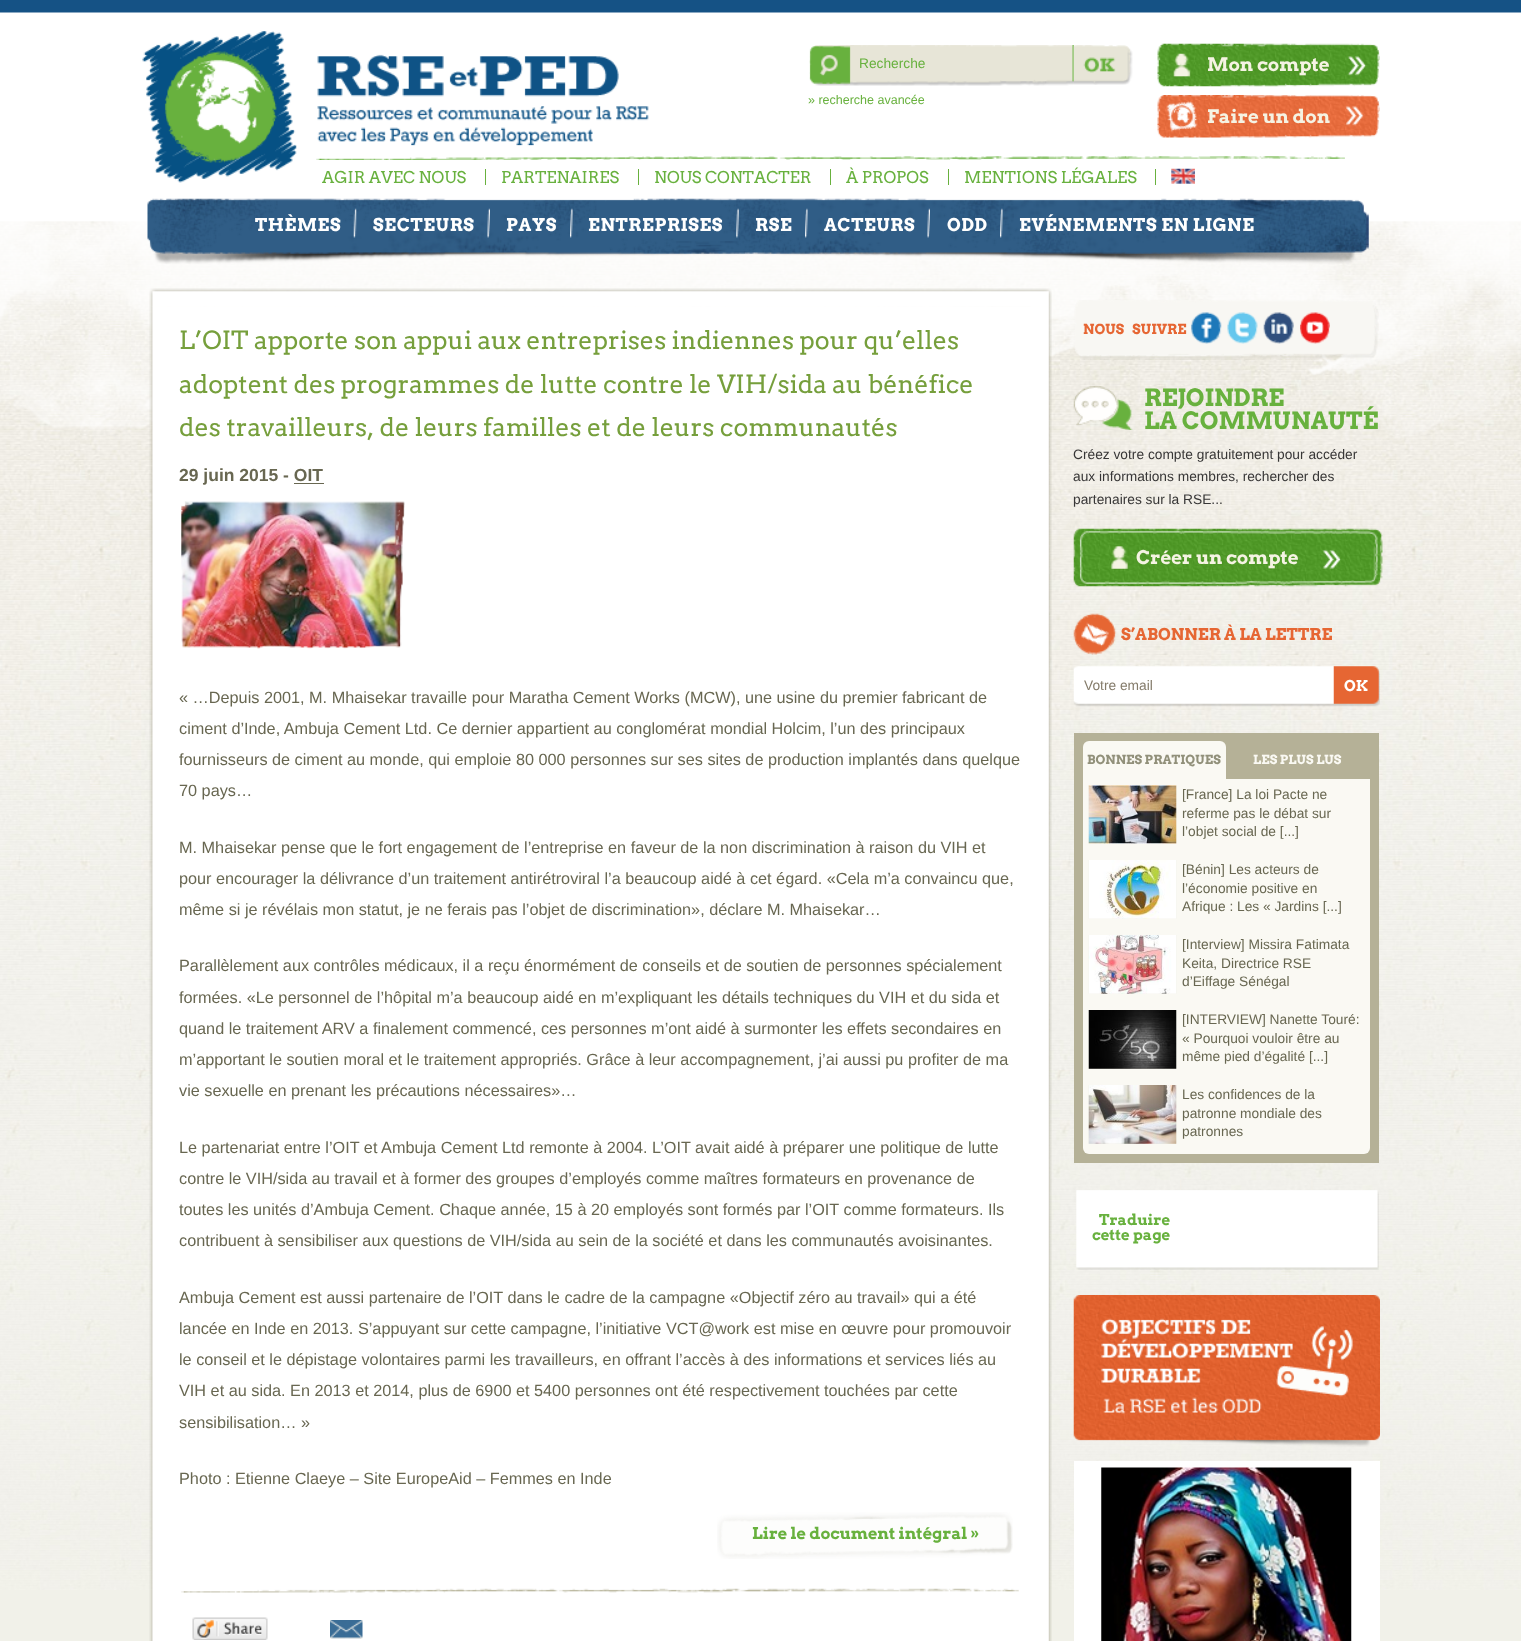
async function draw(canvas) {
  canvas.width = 1521;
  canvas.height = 1641;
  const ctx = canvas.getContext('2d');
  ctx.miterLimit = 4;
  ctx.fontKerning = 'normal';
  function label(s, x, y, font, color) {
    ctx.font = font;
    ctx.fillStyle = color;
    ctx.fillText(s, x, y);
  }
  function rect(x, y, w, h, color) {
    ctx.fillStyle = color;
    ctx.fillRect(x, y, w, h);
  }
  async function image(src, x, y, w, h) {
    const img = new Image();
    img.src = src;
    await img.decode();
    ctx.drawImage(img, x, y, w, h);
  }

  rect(0, 0, 1521, 1641, '#f1f1e9');
  await image('assets/img1.png', 0, 221, 1521, 1369);
  await image('assets/img2.png', 0, 0, 1521, 438);
  await image('assets/img3.png', 142, 31, 155, 152);
  await image('assets/img4.png', 317, 54, 332, 92);
  await image('assets/img5.png', 809, 45, 265, 41);
  label('Recherche', 859, 68, '13.75px Liberation Sans', '#68b13e');
  await image('assets/img6.png', 1073, 45, 60, 40);
  label('» recherche avancée', 808, 104, '12.5px Liberation Sans', '#68b13e');
  await image('assets/img7.png', 1157, 43, 223, 44);
  label('Mon compte', 1207, 71, 'bold 18.75px Arvo', '#f5f3e3');
  await image('assets/img8.png', 1157, 95, 223, 43);
  label('Faire un don', 1207, 123, 'bold 18.75px Arvo', '#f5f3e3');
  await image('assets/img9.png', 316, 156, 1029, 4);
  rect(485, 169, 1, 16, '#68b13e');
  label('AGIR AVEC NOUS', 322, 183, '16.25px Arvo', '#68b13e');
  rect(638, 169, 1, 16, '#68b13e');
  label('PARTENAIRES', 501, 183, '16.25px Arvo', '#68b13e');
  rect(830, 169, 1, 16, '#68b13e');
  label('NOUS CONTACTER', 654, 183, '16.25px Arvo', '#68b13e');
  rect(948, 169, 1, 16, '#68b13e');
  label('À PROPOS', 846, 183, '16.25px Arvo', '#68b13e');
  rect(1155, 169, 1, 16, '#68b13e');
  label('MENTIONS LÉGALES', 964, 183, '16.25px Arvo', '#68b13e');
  await image('assets/img10.png', 1171, 168, 24, 16);
  await image('assets/img11.png', 147, 198, 1222, 66);
  await image('assets/img12.png', 353, 208, 4, 30);
  ctx.letterSpacing = '0.6px';
  label('THÈMES', 255, 231, 'bold 17.5px Arvo', '#fff');
  await image('assets/img13.png', 487, 208, 3, 30);
  label('SECTEURS', 373, 231, 'bold 17.5px Arvo', '#fff');
  await image('assets/img14.png', 570, 208, 3, 30);
  label('PAYS', 506, 231, 'bold 17.5px Arvo', '#fff');
  await image('assets/img15.png', 736, 208, 3, 30);
  label('ENTREPRISES', 588, 231, 'bold 17.5px Arvo', '#fff');
  await image('assets/img16.png', 805, 208, 3, 30);
  label('RSE', 755, 231, 'bold 17.5px Arvo', '#fff');
  await image('assets/img17.png', 927, 208, 3, 30);
  label('ACTEURS', 824, 231, 'bold 17.5px Arvo', '#fff');
  await image('assets/img18.png', 1000, 208, 3, 30);
  label('ODD', 947, 231, 'bold 17.5px Arvo', '#fff');
  label('EVÉNEMENTS EN LIGNE', 1019, 231, 'bold 17.5px Arvo', '#fff');
  await image('assets/img19.png', 149, 288, 903, 19);
  await image('assets/img20.png', 149, 306, 903, 1335);
  ctx.letterSpacing = '0px';
  label('L’OIT apporte son appui aux entreprises indiennes pour qu’elles', 179, 349, '25px Arvo', '#769f3c');
  label('adoptent des programmes de lutte contre le VIH/sida au bénéfice', 179, 393, '25px Arvo', '#769f3c');
  label('des travailleurs, de leurs familles et de leurs communautés', 179, 436, '25px Arvo', '#769f3c');
  label('29 juin 2015 - OIT', 179, 481, 'bold 17.5px Liberation Sans', '#686751');
  rect(294, 483, 30, 1, '#686751');
  await image('assets/img22.png', 181, 501, 224, 148);
  await image('assets/img21.png', 180, 500, 225, 150);
  label('« …Depuis 2001, M. Mhaisekar travaille pour Maratha Cement Works (MCW), une usine du premier fabricant de', 179, 703, '16.25px Liberation Sans', '#686751');
  label('ciment d’Inde, Ambuja Cement Ltd. Ce dernier appartient au conglomérat mondial Holcim, l’un des principaux', 179, 734, '16.25px Liberation Sans', '#686751');
  label('fournisseurs de ciment au monde, qui emploie 80 000 personnes sur ses sites de production implantés dans quelque', 179, 765, '16.25px Liberation Sans', '#686751');
  label('70 pays…', 179, 796, '16.25px Liberation Sans', '#686751');
  label('M. Mhaisekar pense que le fort engagement de l’entreprise en faveur de la non discrimination à raison du VIH et', 179, 853, '16.25px Liberation Sans', '#686751');
  label('pour encourager la délivrance d’un traitement antirétroviral l’a beaucoup aidé à cet égard. «Cela m’a convaincu que,', 179, 884, '16.25px Liberation Sans', '#686751');
  label('même si je révélais mon statut, je ne ferais pas l’objet de discrimination», déclare M. Mhaisekar…', 179, 915, '16.25px Liberation Sans', '#686751');
  label('Parallèlement aux contrôles médicaux, il a reçu énormément de conseils et de soutien de personnes spécialement', 179, 971, '16.25px Liberation Sans', '#686751');
  label('formées. «Le personnel de l’hôpital m’a beaucoup aidé en m’expliquant les détails techniques du VIH et du sida et', 179, 1003, '16.25px Liberation Sans', '#686751');
  label('quand le traitement ARV a finalement commencé, ces personnes m’ont aidé à surmonter les effets secondaires en', 179, 1034, '16.25px Liberation Sans', '#686751');
  label('m’apportant le soutien moral et le traitement appropriés. Grâce à leur accompagnement, j’ai aussi pu profiter de ma', 179, 1065, '16.25px Liberation Sans', '#686751');
  label('vie sexuelle en prenant les précautions nécessaires»…', 179, 1096, '16.25px Liberation Sans', '#686751');
  label('Le partenariat entre l’OIT et Ambuja Cement Ltd remonte à 2004. L’OIT avait aidé à préparer une politique de lutte', 179, 1153, '16.25px Liberation Sans', '#686751');
  label('contre le VIH/sida au travail et à former des groupes d’employés comme maîtres formateurs en provenance de', 179, 1184, '16.25px Liberation Sans', '#686751');
  label('toutes les unités d’Ambuja Cement. Chaque année, 15 à 20 employés sont formés par l’OIT comme formateurs. Ils', 179, 1215, '16.25px Liberation Sans', '#686751');
  label('contribuent à sensibiliser aux questions de VIH/sida au sein de la société et dans les communautés avoisinantes.', 179, 1246, '16.25px Liberation Sans', '#686751');
  label('Ambuja Cement est aussi partenaire de l’OIT dans le cadre de la campagne «Objectif zéro au travail» qui a été', 179, 1303, '16.25px Liberation Sans', '#686751');
  label('lancée en Inde en 2013. S’appuyant sur cette campagne, l’initiative VCT@work est mise en œuvre pour promouvoir', 179, 1334, '16.25px Liberation Sans', '#686751');
  label('le conseil et le dépistage volontaires parmi les travailleurs, en offrant l’accès à des informations et services liés au', 179, 1365, '16.25px Liberation Sans', '#686751');
  label('VIH et au sida. En 2013 et 2014, plus de 6900 et 5400 personnes ont été respectivement touchées par cette', 179, 1396, '16.25px Liberation Sans', '#686751');
  label('sensibilisation… »', 179, 1428, '16.25px Liberation Sans', '#686751');
  label('Photo : Etienne Claeye – Site EuropeAid – Femmes en Inde', 179, 1484, '16.25px Liberation Sans', '#686751');
  await image('assets/img23.png', 717, 1512, 296, 47);
  label('Lire le document intégral »', 752, 1539, 'bold 16.25px Arvo', '#68b13e');
  await image('assets/img24.png', 181, 1588, 838, 5);
  await image('assets/img25.png', 192, 1617, 76, 23);
  await image('assets/img26.png', 330, 1620, 33, 19);
  await image('assets/img27.png', 1074, 300, 305, 60);
  label('NOUS   SUIVRE', 1083, 334, 'bold 13.75px Arvo', '#e66633');
  await image('assets/img28.png', 1191, 312, 31, 32);
  await image('assets/img29.png', 1227, 312, 31, 32);
  await image('assets/img30.png', 1263, 312, 31, 32);
  await image('assets/img31.png', 1300, 312, 30, 32);
  await image('assets/img32.png', 1073, 386, 60, 44);
  label('REJOINDRE', 1144, 406, 'bold 23.75px Arvo', '#68b13e');
  label('LA COMMUNAUTÉ', 1144, 429, 'bold 23.75px Arvo', '#68b13e');
  label('Créez votre compte gratuitement pour accéder', 1073, 459, '13.75px Liberation Sans', '#373636');
  label('aux informations membres, rechercher des', 1073, 481, '13.75px Liberation Sans', '#373636');
  label('partenaires sur la RSE...', 1073, 504, '13.75px Liberation Sans', '#373636');
  await image('assets/img33.png', 1073, 528, 310, 59);
  label('Créer un compte', 1136, 564, 'bold 18.75px Arvo', '#f5f3e3');
  await image('assets/img34.png', 1073, 613, 44, 42);
  label('S’ABONNER À LA LETTRE', 1121, 640, 'bold 16.25px Arvo', '#e66633');
  await image('assets/img35.png', 1073, 666, 307, 41);
  label('Votre email', 1084, 690, '13.75px Liberation Sans', '#847b6a');
  label('OK', 1344, 691, 'bold 15px Arvo', '#fff');
  rect(1074, 733, 305, 430, '#b5b197');
  ctx.fillStyle = '#faf9f3';
  ctx.beginPath();
  ctx.roundRect(1083, 741, 143, 38, [6, 6, 0, 0]);
  ctx.fill();
  label('BONNES PRATIQUES', 1087, 764, 'bold 12.5px Arvo', '#91907a');
  label('LES PLUS LUS', 1253, 764, 'bold 12.5px Arvo', '#faf9f3');
  ctx.beginPath();
  ctx.roundRect(1083, 779, 287, 375, [0, 0, 6, 6]);
  ctx.fill();
  await image('assets/img36.png', 1088, 785, 89, 59);
  await image('assets/img37.png', 1088, 785, 89, 59);
  label('[France] La loi Pacte ne', 1182, 799, '13.75px Liberation Sans', '#686751');
  label('referme pas le débat sur', 1182, 818, '13.75px Liberation Sans', '#686751');
  label('l’objet social de [...]', 1182, 836, '13.75px Liberation Sans', '#686751');
  await image('assets/img36.png', 1088, 860, 89, 59);
  await image('assets/img38.png', 1088, 860, 89, 59);
  label('[Bénin] Les acteurs de', 1182, 874, '13.75px Liberation Sans', '#686751');
  label('l’économie positive en', 1182, 893, '13.75px Liberation Sans', '#686751');
  label('Afrique : Les « Jardins [...]', 1182, 911, '13.75px Liberation Sans', '#686751');
  await image('assets/img36.png', 1088, 935, 89, 59);
  await image('assets/img39.png', 1088, 935, 89, 59);
  label('[Interview] Missira Fatimata', 1182, 949, '13.75px Liberation Sans', '#686751');
  label('Keita, Directrice RSE', 1182, 968, '13.75px Liberation Sans', '#686751');
  label('d’Eiffage Sénégal', 1182, 986, '13.75px Liberation Sans', '#686751');
  await image('assets/img36.png', 1088, 1010, 89, 59);
  await image('assets/img40.png', 1088, 1010, 89, 59);
  label('[INTERVIEW] Nanette Touré:', 1182, 1024, '13.75px Liberation Sans', '#686751');
  label('« Pourquoi vouloir être au', 1182, 1043, '13.75px Liberation Sans', '#686751');
  label('même pied d’égalité [...]', 1182, 1061, '13.75px Liberation Sans', '#686751');
  await image('assets/img36.png', 1088, 1085, 89, 59);
  await image('assets/img41.png', 1088, 1085, 89, 59);
  label('Les confidences de la', 1182, 1099, '13.75px Liberation Sans', '#686751');
  label('patronne mondiale des', 1182, 1118, '13.75px Liberation Sans', '#686751');
  label('patronnes', 1182, 1136, '13.75px Liberation Sans', '#686751');
  await image('assets/img42.png', 1076, 1190, 303, 80);
  label('Traduire', 1099, 1225, 'bold 15px Arvo', '#68b13e');
  label('cette page', 1092, 1240, 'bold 15px Arvo', '#68b13e');
  await image('assets/img43.png', 1073, 1295, 307, 152);
  rect(1074, 1461, 306, 180, '#fff');
  await image('assets/img44.png', 1101, 1467, 251, 174);
}

draw(document.querySelector('canvas'));
